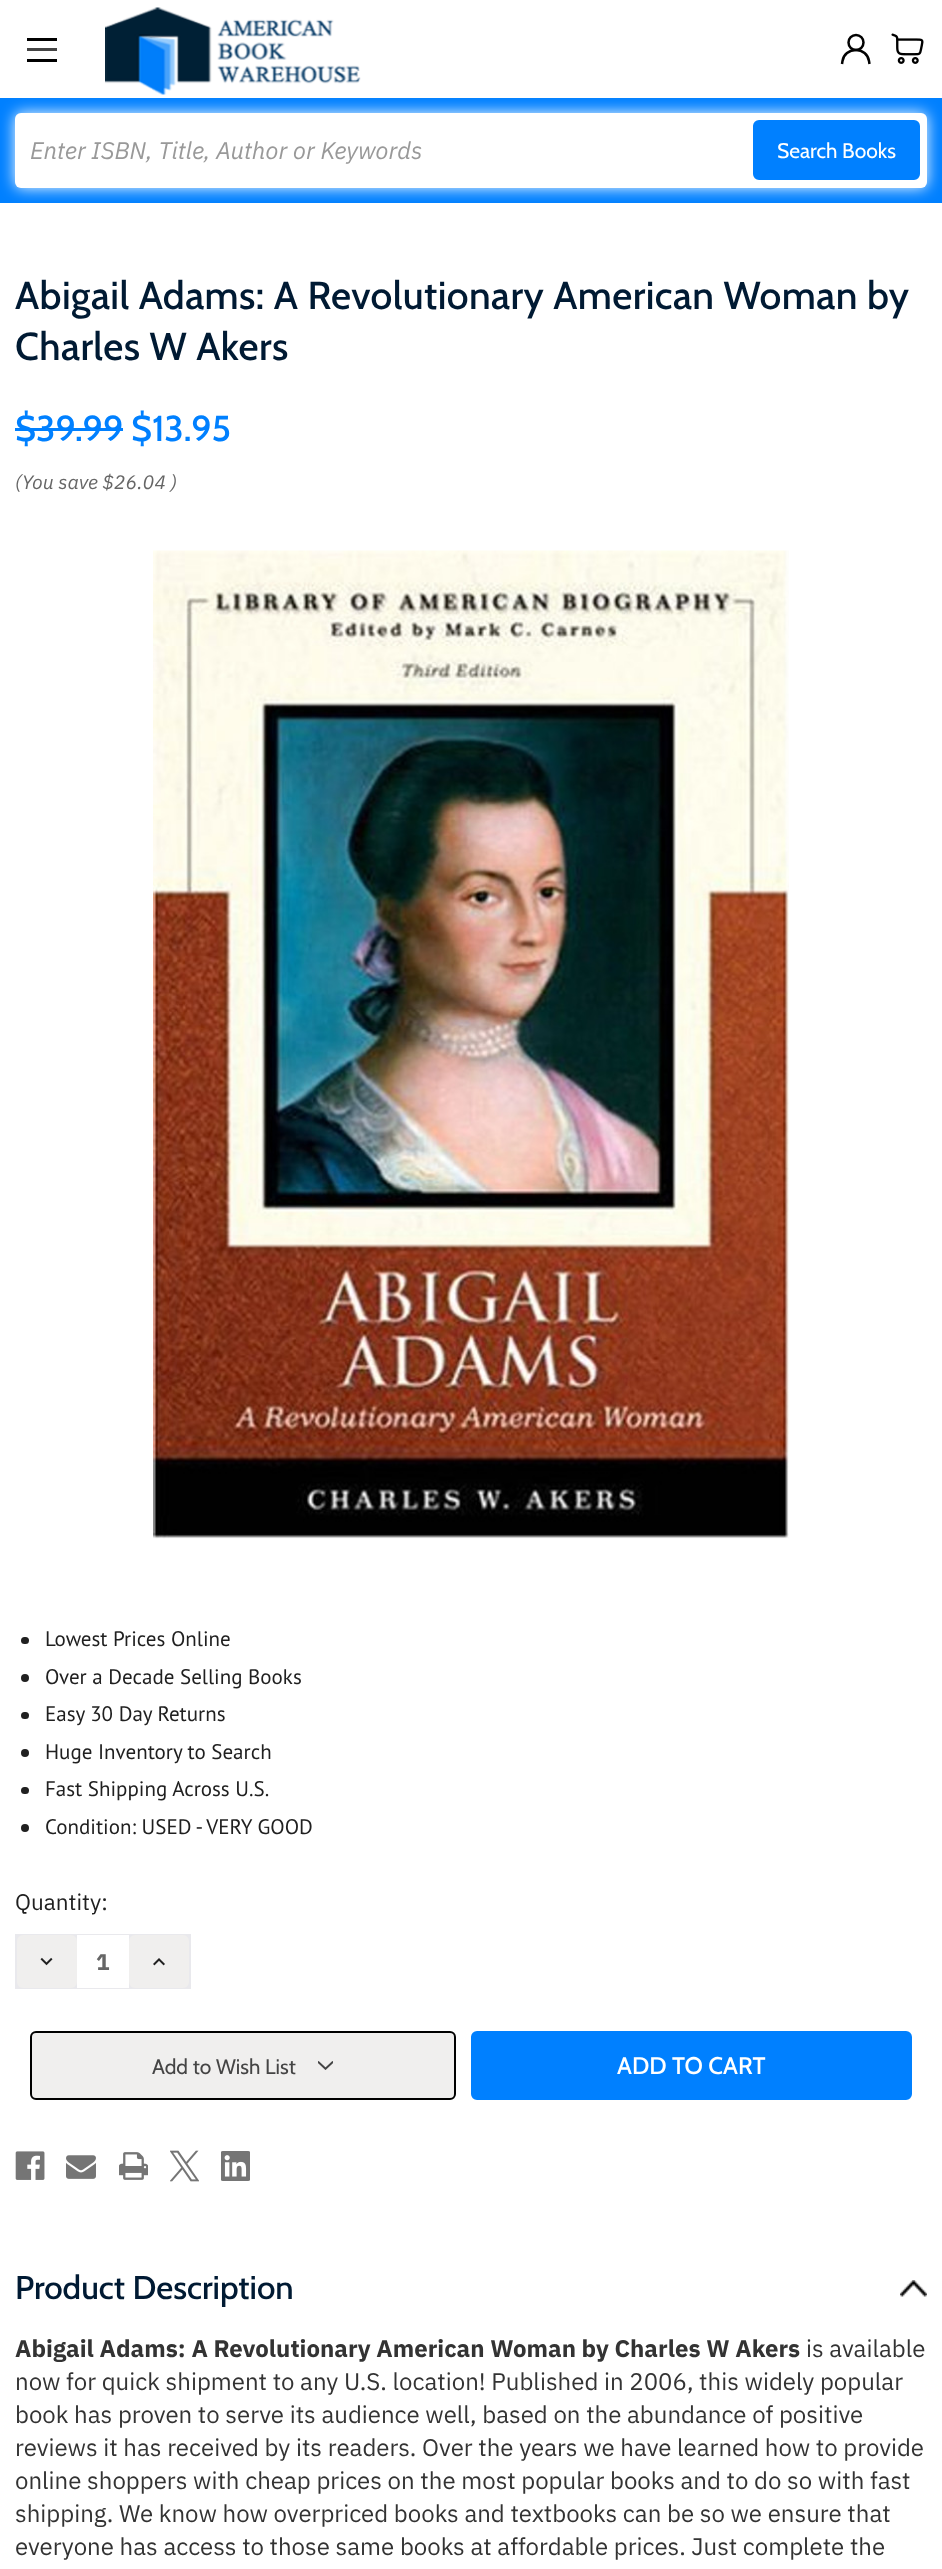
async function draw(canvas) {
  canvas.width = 942;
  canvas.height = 2569;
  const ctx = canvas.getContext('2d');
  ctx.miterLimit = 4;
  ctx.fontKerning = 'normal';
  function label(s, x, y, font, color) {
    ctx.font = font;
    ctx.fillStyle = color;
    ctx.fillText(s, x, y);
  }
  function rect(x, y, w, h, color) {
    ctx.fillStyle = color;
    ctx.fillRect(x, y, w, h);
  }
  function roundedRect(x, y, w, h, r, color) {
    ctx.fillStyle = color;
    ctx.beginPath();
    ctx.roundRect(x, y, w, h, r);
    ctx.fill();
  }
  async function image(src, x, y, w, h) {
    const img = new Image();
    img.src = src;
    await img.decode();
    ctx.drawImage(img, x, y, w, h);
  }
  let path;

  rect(0, 0, 942, 2569, '#fff');
  rect(27, 48, 30, 3, '#444');
  rect(27, 38, 30, 3, '#000');
  rect(27, 59, 30, 3, '#000');
  rect(0, 98, 942, 105, '#0080ff');
  ctx.fillStyle = '#fff';
  ctx.filter = 'blur(7.5px)';
  ctx.beginPath();
  ctx.roundRect(15, 113, 912, 75, 6);
  ctx.fill();
  ctx.filter = 'none';
  await image('assets/img1.png', 105, 7, 256, 88);
  ctx.beginPath();
  ctx.arc(856, 42.5, 7.5, 0, 2 * Math.PI);
  ctx.strokeStyle = '#020202';
  ctx.lineWidth = 2.5;
  ctx.stroke();
  path = new Path2D('M842 64L842.5 61C843.5 54.5 849 50 856 50C862.5 50 868 54.5 869 61L869.5 64');
  ctx.stroke(path);
  await image('assets/img2.png', 891, 33, 33, 31);
  roundedRect(15, 113, 912, 75, 6, '#fff');
  label('Enter ISBN, Title, Author or Keywords', 30, 159, 'italic 24px IBM Plex Sans', '#999');
  ctx.fillStyle = '#0080ff';
  ctx.beginPath();
  ctx.roundRect(754, 121, 165, 58, 5);
  ctx.fill();
  ctx.strokeStyle = '#0080ff';
  ctx.lineWidth = 2;
  ctx.stroke();
  label('Search Books', 777, 158, '21px Cabin', '#fff');
  ctx.letterSpacing = '0.4px';
  label('Abigail Adams: A Revolutionary American Woman by', 15, 309, '500 39px Cabin', '#001a33');
  label('Charles W Akers', 15, 360, '500 39px Cabin', '#001a33');
  ctx.letterSpacing = '0px';
  label('$39.99', 15, 441, '500 36px Cabin', '#0080ff');
  rect(15, 428, 108, 3, '#0080ff');
  label('$13.95', 131, 441, '500 36px Cabin', '#0080ff');
  label('(You save $26.04 )', 15, 489, 'italic 19.5px IBM Plex Sans', '#666');
  await image('assets/img3.png', 153, 550, 636, 989);
  roundedRect(21, 1637, 8, 7, 3.5, '#202020');
  label('Lowest Prices Online', 45, 1646, '21px PT Sans', '#202020');
  ctx.beginPath();
  ctx.arc(25, 1678, 4, 0, 2 * Math.PI);
  ctx.fill();
  label('Over a Decade Selling Books', 45, 1684, '21px PT Sans', '#202020');
  roundedRect(21, 1712, 8, 7, 3.5, '#202020');
  label('Easy 30 Day Returns', 45, 1721, '21px PT Sans', '#202020');
  ctx.beginPath();
  ctx.arc(25, 1753, 4, 0, 2 * Math.PI);
  ctx.fill();
  label('Huge Inventory to Search', 45, 1759, '21px PT Sans', '#202020');
  roundedRect(21, 1787, 8, 7, 3.5, '#202020');
  label('Fast Shipping Across U.S.', 45, 1796, '21px PT Sans', '#202020');
  ctx.beginPath();
  ctx.arc(25, 1828, 4, 0, 2 * Math.PI);
  ctx.fill();
  label('Condition: USED - VERY GOOD', 45, 1834, '21px PT Sans', '#202020');
  label('Quantity:', 15, 1910, '22.5px IBM Plex Sans', '#202020');
  rect(15, 1934, 176, 55, '#e9e9ed');
  roundedRect(17, 1935, 60, 53, 6, '#f0efee');
  await image('assets/img4.png', 40, 1957, 13, 9);
  rect(77, 1935, 52, 53, '#fff');
  label('1', 96, 1970, 'bold 22.5px IBM Plex Sans', '#666');
  roundedRect(129, 1935, 60, 53, 6, '#f0efee');
  await image('assets/img5.png', 153, 1958, 12, 8);
  ctx.fillStyle = '#0080ff';
  ctx.beginPath();
  ctx.roundRect(472.5, 2032.5, 438, 66, 4.5);
  ctx.fill();
  ctx.lineWidth = 3;
  ctx.stroke();
  label('ADD TO CART', 617, 2074, '500 24px Cabin', '#fff');
  ctx.fillStyle = '#f0efee';
  ctx.beginPath();
  ctx.roundRect(31, 2032, 424, 67, 5);
  ctx.fill();
  ctx.strokeStyle = '#000';
  ctx.lineWidth = 2;
  ctx.stroke();
  label('Add to Wish List', 152, 2074, '21px Cabin', '#454545');
  await image('assets/img6.png', 318, 2061, 15, 9);
  await image('assets/img7.png', 15, 2151, 30, 29);
  await image('assets/img8.png', 66, 2155, 30, 24);
  await image('assets/img9.png', 119, 2152, 29, 28);
  await image('assets/img10.png', 170, 2150, 29, 32);
  await image('assets/img11.png', 221, 2151, 29, 30);
  await image('assets/img12.png', 900, 2280, 27, 17);
  label('Product Description', 15, 2299, '500 33px Cabin', '#001a33');
  label('Abigail Adams: A Revolutionary American Woman by Charles W Akers', 15, 2357, 'bold 24px IBM Plex Sans', '#333');
  label('is available', 806, 2357, '24px IBM Plex Sans', '#333');
  label('now for quick shipment to any U.S. location! Published in 2006, this widely popular', 15, 2390, '24px IBM Plex Sans', '#333');
  label('book has proven to serve its audience well, based on the abundance of positive', 15, 2423, '24px IBM Plex Sans', '#333');
  label('reviews it has received by its readers. Over the years we have learned how to provide', 15, 2456, '24px IBM Plex Sans', '#333');
  label('online shoppers with cheap prices on the most popular books and to do so with fast', 15, 2489, '24px IBM Plex Sans', '#333');
  label('shipping. We know how overpriced books and textbooks can be so we ensure that', 15, 2522, '24px IBM Plex Sans', '#333');
  label('everyone has access to those same books at affordable prices. Just complete the', 15, 2555, '24px IBM Plex Sans', '#333');
}

draw(document.querySelector('canvas'));
